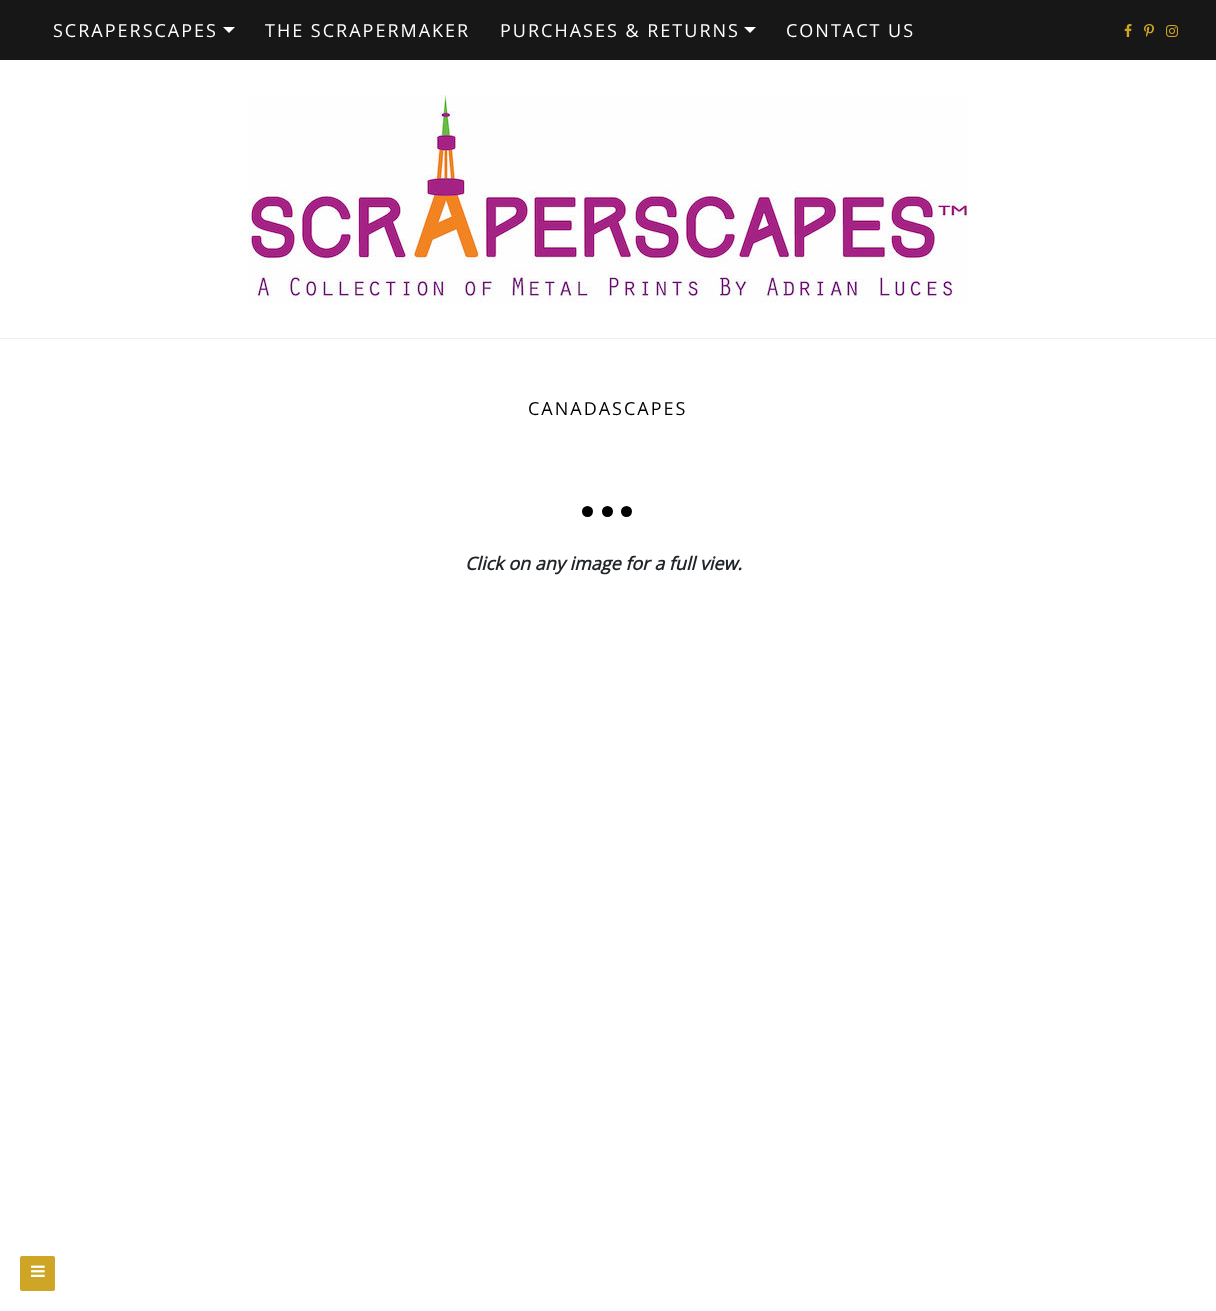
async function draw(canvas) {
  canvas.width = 1216;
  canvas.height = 1311;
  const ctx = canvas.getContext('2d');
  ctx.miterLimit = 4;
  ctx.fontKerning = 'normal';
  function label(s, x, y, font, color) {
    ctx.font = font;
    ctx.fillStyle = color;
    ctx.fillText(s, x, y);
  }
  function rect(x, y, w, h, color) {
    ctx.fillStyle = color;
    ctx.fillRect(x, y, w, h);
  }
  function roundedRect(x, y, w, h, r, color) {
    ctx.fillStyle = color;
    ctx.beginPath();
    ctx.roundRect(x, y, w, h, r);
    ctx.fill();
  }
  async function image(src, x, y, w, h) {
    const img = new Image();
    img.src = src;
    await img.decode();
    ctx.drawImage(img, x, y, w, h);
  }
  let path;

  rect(0, 0, 1216, 1311, '#fff');
  rect(0, 0, 1216, 60, '#171717');
  ctx.letterSpacing = '2px';
  label('SCRAPERSCAPES', 53, 37, '18px Open Sans', '#fff');
  path = new Path2D('M223 27H235L229 33Z');
  ctx.fill(path);
  label('THE SCRAPERMAKER', 265, 37, '18px Open Sans', '#fff');
  label('PURCHASES & RETURNS', 500, 37, '18px Open Sans', '#fff');
  path = new Path2D('M744 27H756L750 33Z');
  ctx.fill(path);
  label('CONTACT US', 786, 37, '18px Open Sans', '#fff');
  await image('assets/img1.png', 1124, 24, 8, 13);
  await image('assets/img2.png', 1144, 24, 10, 13);
  await image('assets/img3.png', 1166, 25, 12, 12);
  rect(0, 338, 1216, 1, '#eee');
  await image('assets/img4.png', 248, 95, 720, 208);
  label('CANADASCAPES', 528, 415, '18px Open Sans', '#000');
  ctx.beginPath();
  ctx.arc(587.5, 511.5, 5.5, 0, 2 * Math.PI);
  ctx.fill();
  ctx.beginPath();
  ctx.arc(607.5, 511.5, 5.5, 0, 2 * Math.PI);
  ctx.fill();
  ctx.beginPath();
  ctx.arc(626.5, 511.5, 5.5, 0, 2 * Math.PI);
  ctx.fill();
  ctx.letterSpacing = '0px';
  label('Click on any image for a full view.', 465, 570, 'italic bold 18px Open Sans', '#212529');
  roundedRect(20, 1256, 35, 35, 2, '#cea525');
  await image('assets/img5.png', 31, 1265, 14, 12);
}

draw(document.querySelector('canvas'));
